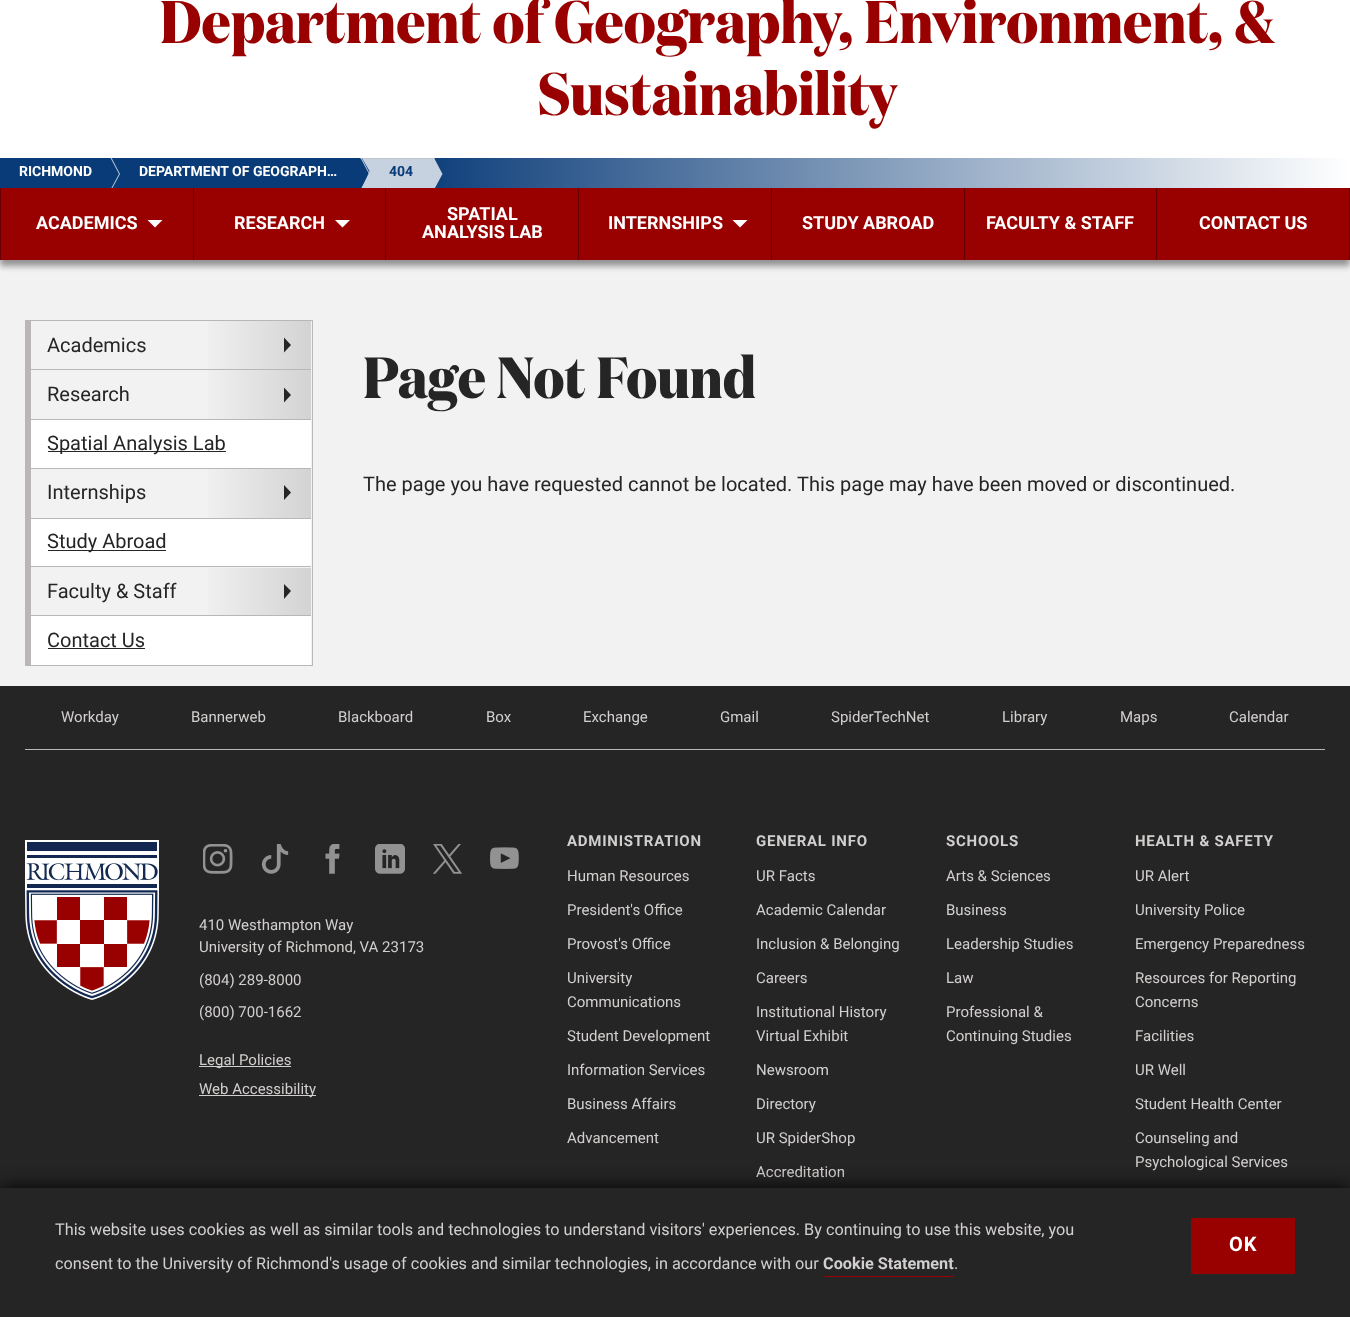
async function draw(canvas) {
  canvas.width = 1350;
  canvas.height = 1317;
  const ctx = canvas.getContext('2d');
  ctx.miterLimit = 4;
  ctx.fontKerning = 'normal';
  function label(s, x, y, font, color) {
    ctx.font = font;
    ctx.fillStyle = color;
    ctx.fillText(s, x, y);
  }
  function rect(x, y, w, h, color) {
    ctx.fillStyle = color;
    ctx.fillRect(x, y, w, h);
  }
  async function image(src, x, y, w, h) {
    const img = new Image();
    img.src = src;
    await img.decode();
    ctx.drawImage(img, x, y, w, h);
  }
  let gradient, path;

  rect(0, 0, 1350, 1317, '#262525');
  rect(0, 0, 1350, 158, '#fff');
  label('Department of Geography, Environment, &', 160, 43, 'bold 60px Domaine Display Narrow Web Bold', '#900');
  label('Sustainability', 538, 115, 'bold 60px Domaine Display Narrow Web Bold', '#900');
  rect(0, 260, 1350, 426, '#f3f2f2');
  ctx.fillStyle = '#00000066';
  ctx.filter = 'blur(3px)';
  ctx.beginPath();
  ctx.rect(0, 194, 1350, 72);
  ctx.fill();
  ctx.filter = 'none';
  gradient = ctx.createLinearGradient(0, 173, 1350, 172);
  gradient.addColorStop(0.3, '#093b78');
  gradient.addColorStop(1, '#fff');
  ctx.fillStyle = gradient;
  ctx.fillRect(0, 158, 1350, 30);
  ctx.save();
  ctx.beginPath();
  ctx.rect(0, 158, 1350, 30);
  ctx.clip();
  ctx.fillStyle = '#c7d2e0';
  path = new Path2D('M110 192.5V155L120 174Z');
  ctx.fill(path);
  ctx.fillStyle = '#093b78';
  path = new Path2D('M109 192.5V155L119 174Z');
  ctx.fill(path);
  ctx.restore();
  label('RICHMOND', 19, 176, 'bold 14px Roboto', '#fff');
  ctx.save();
  ctx.beginPath();
  ctx.rect(0, 158, 1350, 30);
  ctx.clip();
  ctx.fillStyle = '#c7d2e0';
  path = new Path2D('M360 192.5V155L370 174Z');
  ctx.fill(path);
  ctx.fillStyle = '#093b78';
  path = new Path2D('M359 192.5V155L369 174Z');
  ctx.fill(path);
  ctx.restore();
  label('DEPARTMENT OF GEOGRAPH…', 139, 176, 'bold 14px Roboto', '#fff');
  ctx.save();
  ctx.beginPath();
  ctx.rect(0, 158, 1350, 30);
  ctx.clip();
  ctx.fillStyle = '#c7d2e0';
  path = new Path2D('M432.5 192.5V155L442.5 174Z');
  ctx.fill(path);
  ctx.restore();
  rect(370, 158, 63, 30, '#c7d2e0');
  ctx.save();
  ctx.beginPath();
  ctx.rect(0, 158, 1350, 30);
  ctx.clip();
  path = new Path2D('M359.5 193L370 170.5L376 187Z');
  ctx.fill(path);
  path = new Path2D('M371.5 174.5L359 153L376 157.5Z');
  ctx.fill(path);
  ctx.restore();
  rect(360, 158, 75, 1, '#bab6b580');
  label('404', 389, 176, 'bold 14px Roboto', '#093b78');
  rect(1, 188, 1348, 72, '#900');
  rect(1349, 188, 1, 72, '#600');
  rect(0, 188, 1, 72, '#600');
  rect(193, 188, 1, 72, '#600');
  label('ACADEMICS', 36, 229, 'bold 18px Roboto', '#fff');
  path = new Path2D('M147.5 220H162.5L155 227.5Z');
  ctx.fill(path);
  rect(385, 188, 1, 72, '#600');
  label('RESEARCH', 234, 229, 'bold 18px Roboto', '#fff');
  path = new Path2D('M335 220H350L342.5 227.5Z');
  ctx.fill(path);
  rect(578, 188, 1, 72, '#600');
  label('SPATIAL', 447, 220, 'bold 18px Roboto', '#fff');
  label('ANALYSIS LAB', 422, 238, 'bold 18px Roboto', '#fff');
  rect(771, 188, 1, 72, '#600');
  label('INTERNSHIPS', 608, 229, 'bold 18px Roboto', '#fff');
  path = new Path2D('M732.5 220H747.5L740 227.5Z');
  ctx.fill(path);
  rect(964, 188, 1, 72, '#600');
  label('STUDY ABROAD', 802, 229, 'bold 18px Roboto', '#fff');
  rect(1156, 188, 1, 72, '#600');
  label('FACULTY & STAFF', 986, 229, 'bold 18px Roboto', '#fff');
  label('CONTACT US', 1199, 229, 'bold 18px Roboto', '#fff');
  ctx.strokeStyle = '#bab6b5';
  ctx.strokeRect(25.5, 320.5, 287, 345);
  rect(26, 369, 285, 1, '#bab6b5');
  rect(26, 321, 5, 49, '#bab6b5');
  label('Academics', 47, 352, '20px Roboto', '#262525');
  gradient = ctx.createLinearGradient(199, 345, 311, 345);
  gradient.addColorStop(0, '#f3f2f2');
  gradient.addColorStop(1, '#d4d3d3');
  ctx.fillStyle = gradient;
  ctx.fillRect(208, 321, 103, 48);
  ctx.fillStyle = '#262525';
  path = new Path2D('M284 352.5V337.5L291 345Z');
  ctx.fill(path);
  rect(26, 419, 285, 1, '#bab6b5');
  rect(26, 370, 5, 50, '#bab6b5');
  label('Research', 47, 401, '20px Roboto', '#262525');
  gradient = ctx.createLinearGradient(199, 394, 311, 394);
  gradient.addColorStop(0, '#f3f2f2');
  gradient.addColorStop(1, '#d4d3d3');
  ctx.fillStyle = gradient;
  ctx.fillRect(208, 370, 103, 49);
  ctx.fillStyle = '#262525';
  path = new Path2D('M284 402.5V387.5L291 395Z');
  ctx.fill(path);
  rect(26, 468, 285, 1, '#bab6b5');
  rect(26, 420, 5, 49, '#bab6b5');
  rect(31, 420, 280, 48, '#fff');
  rect(48, 451, 178, 1, '#262525');
  label('Spatial Analysis Lab', 47, 450, '20px Roboto', '#262525');
  rect(26, 518, 285, 1, '#bab6b5');
  rect(26, 469, 5, 50, '#bab6b5');
  label('Internships', 47, 499, '20px Roboto', '#262525');
  gradient = ctx.createLinearGradient(199, 493, 311, 493);
  gradient.addColorStop(0, '#f3f2f2');
  gradient.addColorStop(1, '#d4d3d3');
  ctx.fillStyle = gradient;
  ctx.fillRect(208, 469, 103, 49);
  ctx.fillStyle = '#262525';
  path = new Path2D('M284 500V485L291 492.5Z');
  ctx.fill(path);
  rect(26, 566, 285, 1, '#bab6b5');
  rect(26, 519, 5, 49, '#bab6b5');
  rect(31, 519, 280, 47, '#fff');
  rect(48, 550, 118, 1, '#262525');
  label('Study Abroad', 47, 548, '20px Roboto', '#262525');
  rect(26, 615, 285, 1, '#bab6b5');
  rect(26, 568, 5, 97, '#bab6b5');
  label('Faculty & Staff', 47, 598, '20px Roboto', '#262525');
  gradient = ctx.createLinearGradient(199, 591, 311, 591);
  gradient.addColorStop(0, '#f3f2f2');
  gradient.addColorStop(1, '#d4d3d3');
  ctx.fillStyle = gradient;
  ctx.fillRect(208, 568, 103, 47);
  ctx.fillStyle = '#262525';
  path = new Path2D('M284 599V584L291 591Z');
  ctx.fill(path);
  rect(31, 616, 280, 49, '#fff');
  label('Contact Us', 47, 647, '20px Roboto', '#262525');
  rect(48, 648, 97, 1, '#262525');
  label('Page Not Found', 363, 398, 'bold 58px Domaine Display Narrow Web Bold', '#262525');
  label('The page you have requested cannot be located. This page may have been moved or discontinued.', 363, 491, '20px Roboto', '#262525');
  rect(25, 749, 1300, 1, '#bab6b5');
  label('Workday', 61, 722, '15px Roboto', '#d2d0cf');
  label('Bannerweb', 191, 722, '15px Roboto', '#d2d0cf');
  label('Blackboard', 338, 722, '15px Roboto', '#d2d0cf');
  label('Box', 486, 722, '15px Roboto', '#d2d0cf');
  label('Exchange', 583, 722, '15px Roboto', '#d2d0cf');
  label('Gmail', 720, 722, '15px Roboto', '#d2d0cf');
  label('SpiderTechNet', 831, 722, '15px Roboto', '#d2d0cf');
  label('Library', 1002, 722, '15px Roboto', '#d2d0cf');
  label('Maps', 1120, 722, '15px Roboto', '#d2d0cf');
  label('Calendar', 1229, 722, '15px Roboto', '#d2d0cf');
  await image('assets/img1.png', 25, 840, 134, 160);
  await image('assets/img2.png', 203, 844, 30, 30);
  await image('assets/img3.png', 261, 844, 28, 30);
  await image('assets/img4.png', 325, 844, 15, 30);
  await image('assets/img5.png', 375, 844, 30, 30);
  await image('assets/img6.png', 433, 844, 29, 30);
  await image('assets/img7.png', 490, 847, 29, 22);
  label('410 Westhampton Way', 199, 930, '15px Roboto', '#d2d0cf');
  label('University of Richmond, VA 23173', 199, 952, '15px Roboto', '#d2d0cf');
  label('(804) 289-8000', 199, 985, '15px Roboto', '#d2d0cf');
  label('(800) 700-1662', 199, 1017, '15px Roboto', '#d2d0cf');
  rect(199, 1066, 92, 1, '#d2d0cf');
  label('Legal Policies', 199, 1065, '15px Roboto', '#d2d0cf');
  rect(199, 1095, 117, 1, '#d2d0cf');
  label('Web Accessibility', 199, 1094, '15px Roboto', '#d2d0cf');
  ctx.letterSpacing = '0.75px';
  label('ADMINISTRATION', 567, 846, 'bold 15px Roboto', '#d2d0cf');
  ctx.letterSpacing = '0px';
  label('Human Resources', 567, 881, '15px Roboto', '#d2d0cf');
  label('President\'s Office', 567, 915, '15px Roboto', '#d2d0cf');
  label('Provost\'s Office', 567, 949, '15px Roboto', '#d2d0cf');
  label('University', 567, 983, '15px Roboto', '#d2d0cf');
  label('Communications', 567, 1007, '15px Roboto', '#d2d0cf');
  label('Student Development', 567, 1041, '15px Roboto', '#d2d0cf');
  label('Information Services', 567, 1075, '15px Roboto', '#d2d0cf');
  label('Business Affairs', 567, 1109, '15px Roboto', '#d2d0cf');
  label('Advancement', 567, 1143, '15px Roboto', '#d2d0cf');
  ctx.letterSpacing = '0.75px';
  label('GENERAL INFO', 756, 846, 'bold 15px Roboto', '#d2d0cf');
  ctx.letterSpacing = '0px';
  label('UR Facts', 756, 881, '15px Roboto', '#d2d0cf');
  label('Academic Calendar', 756, 915, '15px Roboto', '#d2d0cf');
  label('Inclusion & Belonging', 756, 949, '15px Roboto', '#d2d0cf');
  label('Careers', 756, 983, '15px Roboto', '#d2d0cf');
  label('Institutional History', 756, 1017, '15px Roboto', '#d2d0cf');
  label('Virtual Exhibit', 756, 1041, '15px Roboto', '#d2d0cf');
  label('Newsroom', 756, 1075, '15px Roboto', '#d2d0cf');
  label('Directory', 756, 1109, '15px Roboto', '#d2d0cf');
  label('UR SpiderShop', 756, 1143, '15px Roboto', '#d2d0cf');
  label('Accreditation', 756, 1177, '15px Roboto', '#d2d0cf');
  ctx.letterSpacing = '0.75px';
  label('SCHOOLS', 946, 846, 'bold 15px Roboto', '#d2d0cf');
  ctx.letterSpacing = '0px';
  label('Arts & Sciences', 946, 881, '15px Roboto', '#d2d0cf');
  label('Business', 946, 915, '15px Roboto', '#d2d0cf');
  label('Leadership Studies', 946, 949, '15px Roboto', '#d2d0cf');
  label('Law', 946, 983, '15px Roboto', '#d2d0cf');
  label('Professional &', 946, 1017, '15px Roboto', '#d2d0cf');
  label('Continuing Studies', 946, 1041, '15px Roboto', '#d2d0cf');
  ctx.letterSpacing = '0.75px';
  label('HEALTH & SAFETY', 1135, 846, 'bold 15px Roboto', '#d2d0cf');
  ctx.letterSpacing = '0px';
  label('UR Alert', 1135, 881, '15px Roboto', '#d2d0cf');
  label('University Police', 1135, 915, '15px Roboto', '#d2d0cf');
  label('Emergency Preparedness', 1135, 949, '15px Roboto', '#d2d0cf');
  label('Resources for Reporting', 1135, 983, '15px Roboto', '#d2d0cf');
  label('Concerns', 1135, 1007, '15px Roboto', '#d2d0cf');
  label('Facilities', 1135, 1041, '15px Roboto', '#d2d0cf');
  label('UR Well', 1135, 1075, '15px Roboto', '#d2d0cf');
  label('Student Health Center', 1135, 1109, '15px Roboto', '#d2d0cf');
  label('Counseling and', 1135, 1143, '15px Roboto', '#d2d0cf');
  label('Psychological Services', 1135, 1167, '15px Roboto', '#d2d0cf');
  ctx.fillStyle = '#000';
  ctx.filter = 'blur(9.5px)';
  ctx.beginPath();
  ctx.rect(0, 1188, 1350, 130);
  ctx.fill();
  ctx.filter = 'none';
  rect(0, 1188, 1350, 129, '#262525');
  label('This website uses cookies as well as similar tools and technologies to understand visitors\' experiences. By continuing to use this website, you', 55, 1235, '16.25px Roboto', '#d2d0cf');
  label('consent to the University of Richmond\'s usage of cookies and similar technologies, in accordance with our', 55, 1269, '16.25px Roboto', '#d2d0cf');
  rect(823, 1276, 131, 1, '#900');
  label('Cookie Statement', 823, 1269, 'bold 16.25px Roboto', '#d2d0cf');
  label('.', 954, 1269, '16.25px Roboto', '#d2d0cf');
  rect(1191, 1218, 104, 56, '#900');
  ctx.letterSpacing = '1px';
  label('OK', 1229, 1251, 'bold 20px Roboto', '#fff');
}

draw(document.querySelector('canvas'));
